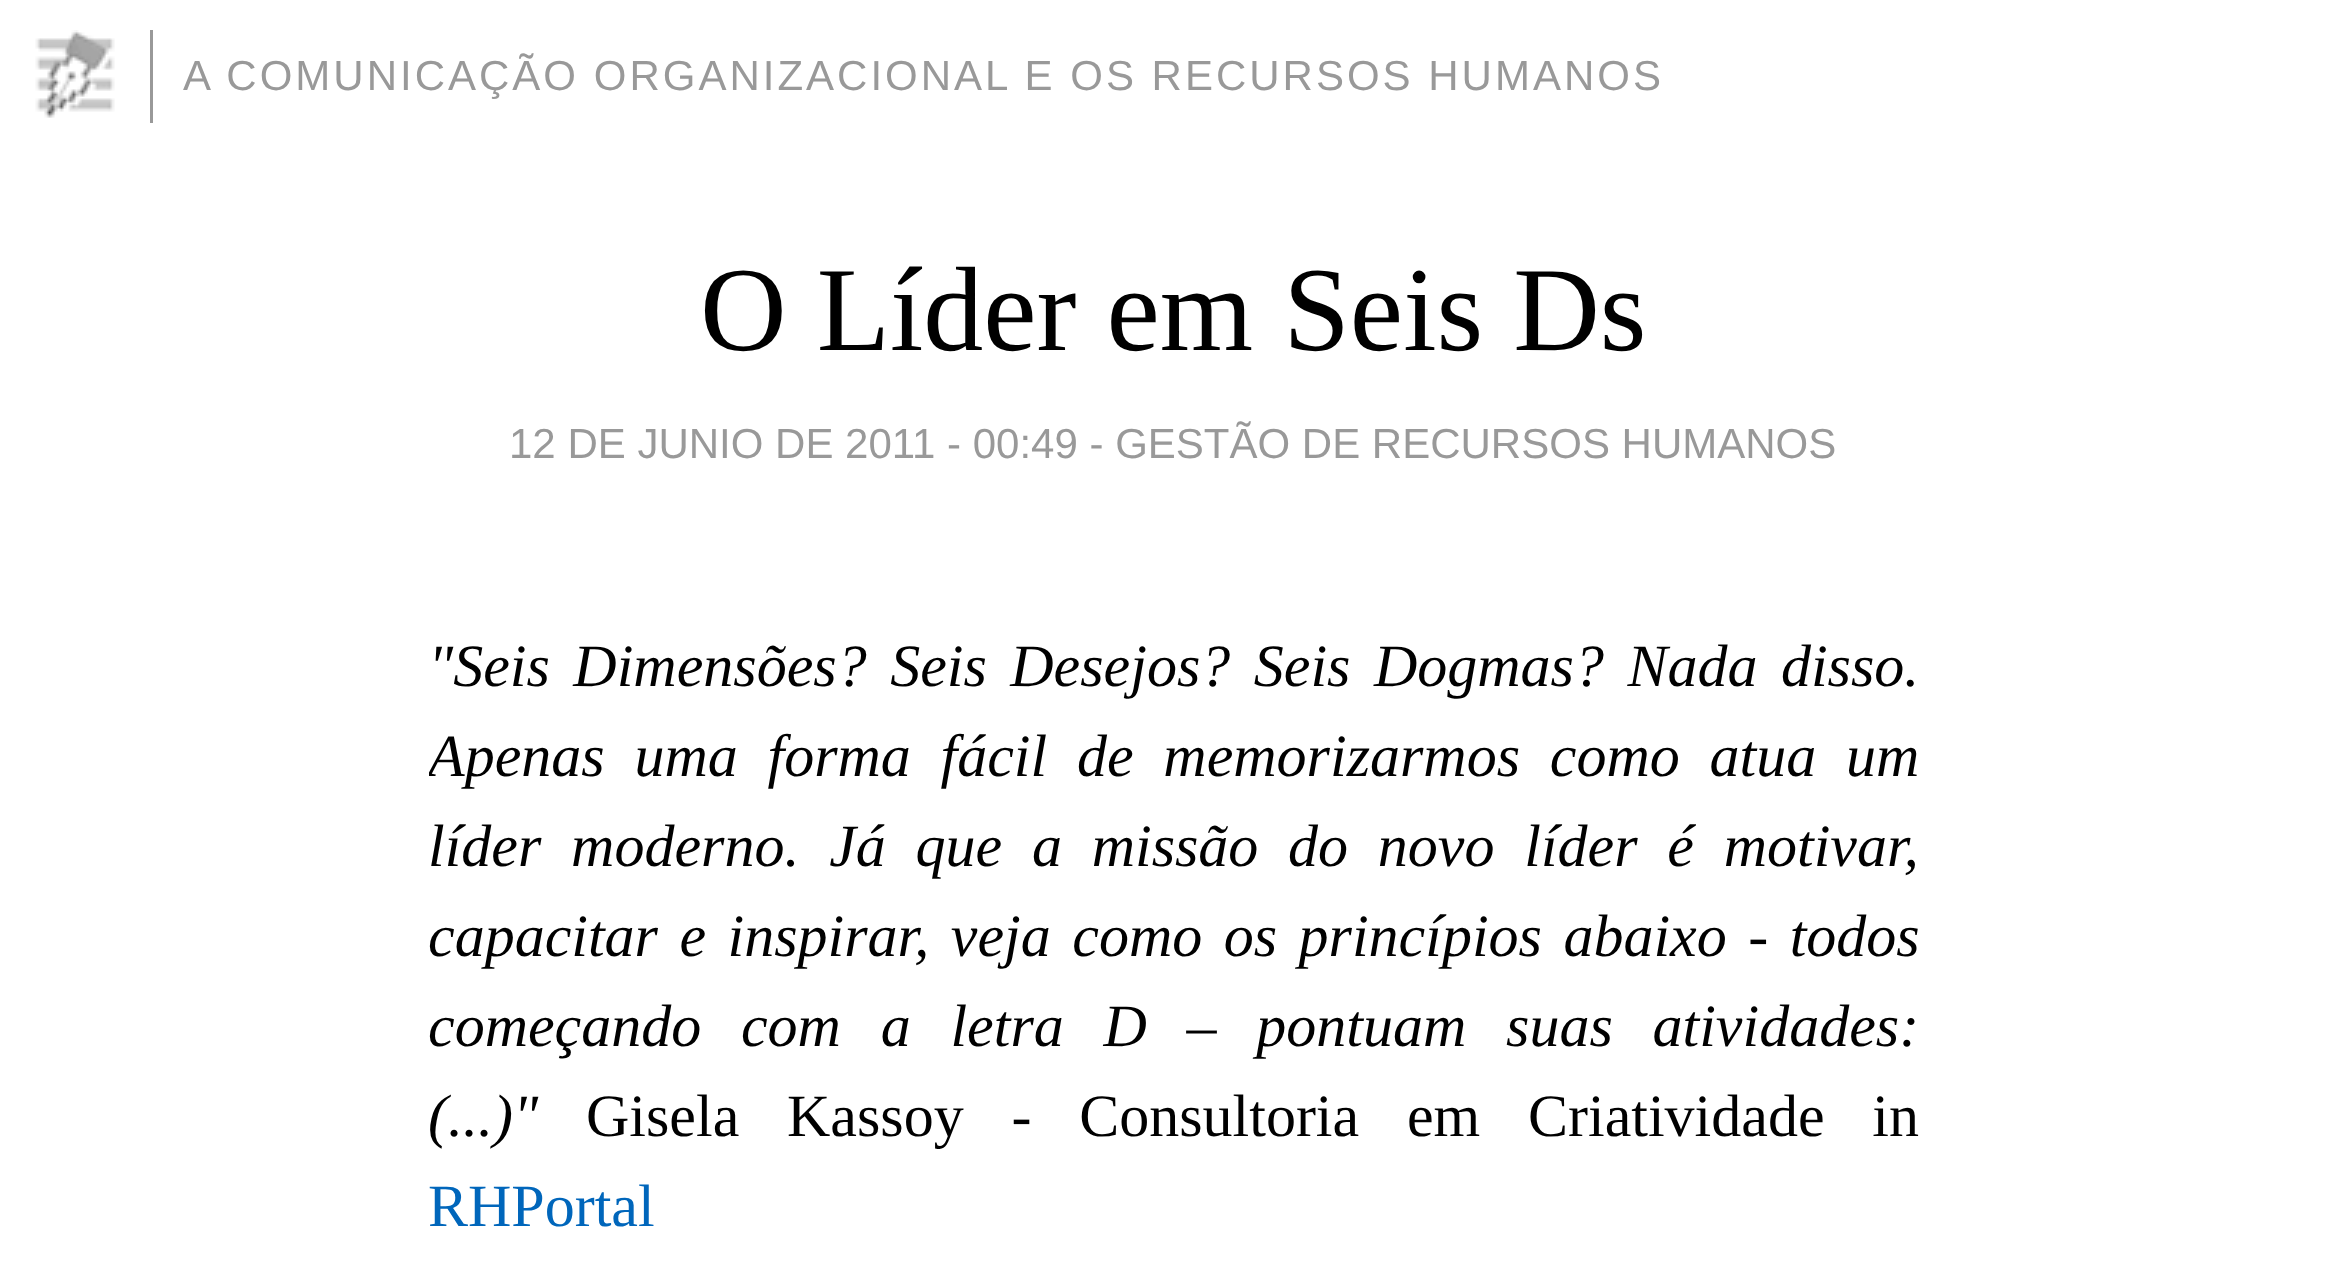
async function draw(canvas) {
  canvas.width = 2345;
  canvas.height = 1287;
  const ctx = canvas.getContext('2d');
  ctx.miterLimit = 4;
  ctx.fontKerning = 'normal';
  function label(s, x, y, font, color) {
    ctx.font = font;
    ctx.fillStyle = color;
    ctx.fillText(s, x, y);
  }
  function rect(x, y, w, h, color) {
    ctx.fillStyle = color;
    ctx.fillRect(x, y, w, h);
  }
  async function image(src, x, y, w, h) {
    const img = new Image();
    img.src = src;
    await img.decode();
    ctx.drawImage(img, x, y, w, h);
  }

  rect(0, 0, 2345, 1287, '#fff');
  await image('assets/img1.png', 35, 30, 80, 88);
  rect(150, 30, 3, 93, '#999');
  ctx.letterSpacing = '3px';
  label('A COMUNICAÇÃO ORGANIZACIONAL E OS RECURSOS HUMANOS', 183, 90, '42px Liberation Sans', '#999');
  ctx.letterSpacing = '0px';
  label('O Líder em Seis Ds', 700, 350, '120px Liberation Serif', '#000');
  label('12 DE JUNIO DE 2011 - 00:49 - GESTÃO DE RECURSOS HUMANOS', 509, 458, '42px Liberation Sans', '#999');
  ctx.wordSpacing = '8.5px';
  label('"Seis Dimensões? Seis Desejos? Seis Dogmas? Nada disso.', 428, 686, 'italic 60px Liberation Serif', '#000');
  ctx.save();
  ctx.beginPath();
  ctx.rect(429, 153, 1488, 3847);
  ctx.clip();
  ctx.wordSpacing = '14.75px';
  label('Apenas uma forma fácil de memorizarmos como atua um', 428, 776, 'italic 60px Liberation Serif', '#000');
  ctx.restore();
  ctx.wordSpacing = '14.75px';
  label('líder moderno. Já que a missão do novo líder é motivar,', 428, 866, 'italic 60px Liberation Serif', '#000');
  ctx.wordSpacing = '6.5px';
  label('capacitar e inspirar, veja como os princípios abaixo - todos', 428, 956, 'italic 60px Liberation Serif', '#000');
  ctx.wordSpacing = '24.75px';
  label('começando com a letra D – pontuam suas atividades:', 428, 1046, 'italic 60px Liberation Serif', '#000');
  ctx.wordSpacing = '0px';
  label('(...)"', 428, 1136, 'italic 60px Liberation Serif', '#000');
  ctx.wordSpacing = '32.75px';
  label('Gisela Kassoy - Consultoria em Criatividade in', 586, 1136, '60px Liberation Serif', '#000');
  ctx.wordSpacing = '0px';
  label('RHPortal', 428, 1226, '60px Liberation Serif', '#06b');
}

draw(document.querySelector('canvas'));
